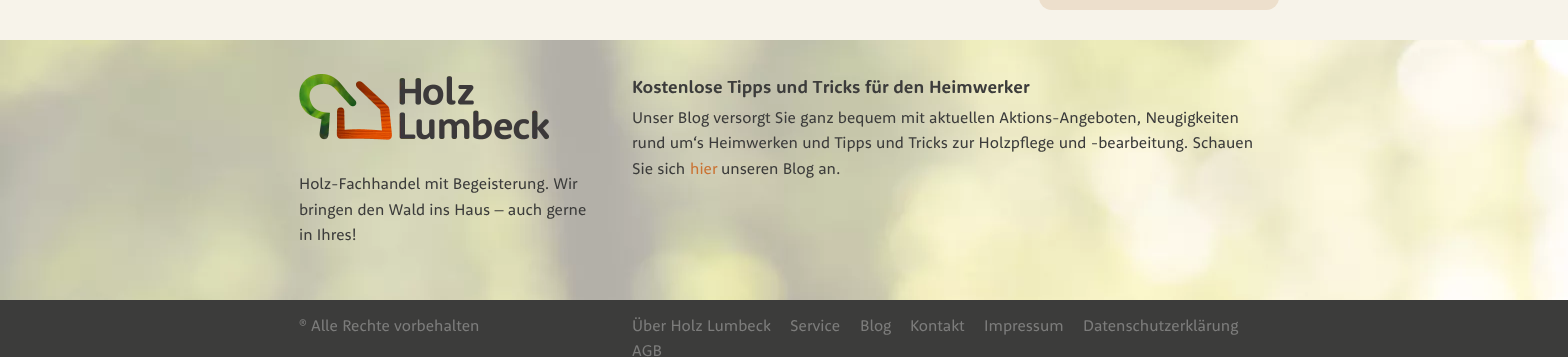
async function draw(canvas) {
  canvas.width = 1568;
  canvas.height = 357;
  const ctx = canvas.getContext('2d');
  ctx.miterLimit = 4;
  ctx.fontKerning = 'normal';
  function label(s, x, y, font, color) {
    ctx.font = font;
    ctx.fillStyle = color;
    ctx.fillText(s, x, y);
  }
  function rect(x, y, w, h, color) {
    ctx.fillStyle = color;
    ctx.fillRect(x, y, w, h);
  }
  function roundedRect(x, y, w, h, r, color) {
    ctx.fillStyle = color;
    ctx.beginPath();
    ctx.roundRect(x, y, w, h, r);
    ctx.fill();
  }
  async function image(src, x, y, w, h) {
    const img = new Image();
    img.src = src;
    await img.decode();
    ctx.drawImage(img, x, y, w, h);
  }

  rect(0, 0, 1568, 357, '#f7f3ea');
  roundedRect(1039, -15, 240, 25, 15, '#eddfcc');
  await image('assets/img1.png', 0, 40, 1568, 260);
  label('Kostenlose Tipps und Tricks für den Heimwerker', 632, 93, 'bold 18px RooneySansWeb', '#3c3c3b');
  label('Unser Blog versorgt Sie ganz bequem mit aktuellen Aktions-Angeboten, Neugigkeiten', 632, 123, '16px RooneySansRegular', '#3c3c3b');
  label('rund um‘s Heimwerken und Tipps und Tricks zur Holzpflege und -bearbeitung. Schauen', 632, 148, '16px RooneySansRegular', '#3c3c3b');
  label('Sie sich', 632, 174, '16px RooneySansRegular', '#3c3c3b');
  label('hier', 690, 174, '16px RooneySansRegular', '#ca7333');
  label('unseren Blog an.', 721, 174, '16px RooneySansRegular', '#3c3c3b');
  await image('assets/img2.png', 299, 74, 250, 66);
  label('Holz-Fachhandel mit Begeisterung. Wir', 299, 189, '16px RooneySansRegular', '#3c3c3b');
  label('bringen den Wald ins Haus – auch gerne', 299, 215, '16px RooneySansRegular', '#3c3c3b');
  label('in Ihres!', 299, 240, '16px RooneySansRegular', '#3c3c3b');
  rect(0, 300, 1568, 57, '#3c3c3b');
  label('® Alle Rechte vorbehalten', 299, 331, '16px RooneySansRegular', '#7c7c7b');
  label('Über Holz Lumbeck', 632, 331, '16px RooneySansRegular', '#7c7c7b');
  label('Service', 790, 331, '16px RooneySansRegular', '#7c7c7b');
  label('Blog', 860, 331, '16px RooneySansRegular', '#7c7c7b');
  label('Kontakt', 910, 331, '16px RooneySansRegular', '#7c7c7b');
  label('Impressum', 984, 331, '16px RooneySansRegular', '#7c7c7b');
  label('Datenschutzerklärung', 1083, 331, '16px RooneySansRegular', '#7c7c7b');
  label('AGB', 632, 356, '16px RooneySansRegular', '#7c7c7b');
}

draw(document.querySelector('canvas'));
